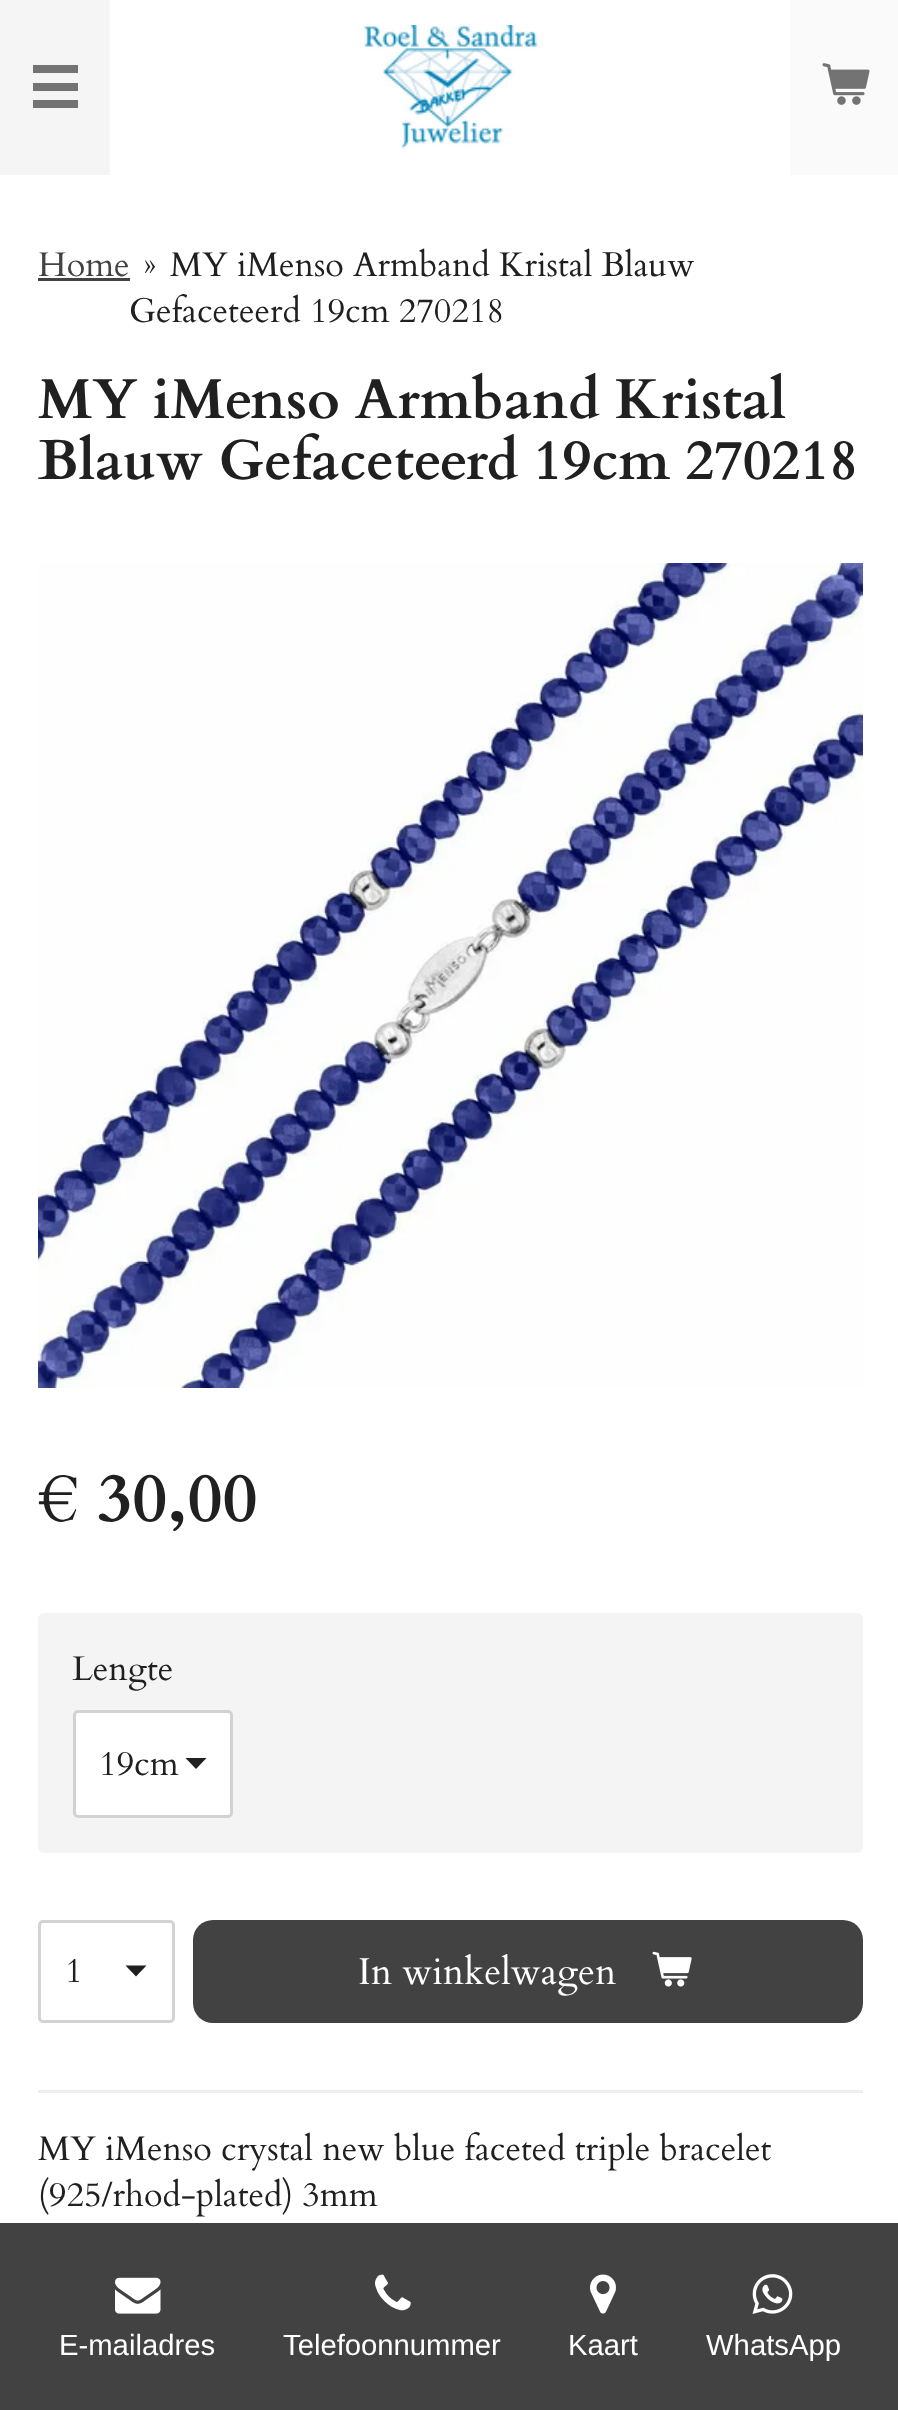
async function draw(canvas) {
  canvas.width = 898;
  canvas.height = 2410;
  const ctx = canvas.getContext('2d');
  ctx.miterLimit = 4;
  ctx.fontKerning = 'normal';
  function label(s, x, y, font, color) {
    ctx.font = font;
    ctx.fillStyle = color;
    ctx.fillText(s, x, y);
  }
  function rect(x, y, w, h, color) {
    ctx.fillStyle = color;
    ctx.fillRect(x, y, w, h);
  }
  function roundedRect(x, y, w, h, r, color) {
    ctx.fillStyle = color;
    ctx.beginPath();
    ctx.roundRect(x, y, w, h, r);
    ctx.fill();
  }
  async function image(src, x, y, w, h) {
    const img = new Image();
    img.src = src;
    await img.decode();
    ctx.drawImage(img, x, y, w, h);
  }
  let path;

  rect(0, 0, 898, 2410, '#fff');
  rect(0, 0, 110, 175, '#f5f5f5');
  rect(33, 83, 45, 8, '#737373');
  rect(33, 65, 45, 8, '#737373');
  rect(33, 100, 45, 8, '#737373');
  await image('assets/img1.png', 363, 25, 176, 124);
  rect(790, 0, 108, 175, '#fafafa');
  await image('assets/img2.png', 822, 63, 48, 42);
  label('Home', 38, 276, '34.25px Cardo', '#424242');
  rect(38, 278, 92, 3, '#424242');
  label('»', 143, 276, '34.25px Cardo', '#202020');
  label('MY iMenso Armband Kristal Blauw', 170, 276, '34.25px Cardo', '#202020');
  label('Gefaceteerd 19cm 270218', 129, 322, '34.25px Cardo', '#202020');
  label('MY iMenso Armband Kristal', 38, 418, 'bold 56.25px Cardo', '#202020');
  label('Blauw Gefaceteerd 19cm 270218', 38, 479, 'bold 56.25px Cardo', '#202020');
  await image('assets/img3.png', 38, 563, 825, 825);
  label('€ 30,00', 38, 1521, 'bold 68.5px Cardo', '#202020');
  roundedRect(38, 1613, 825, 240, 6, '#f4f4f4');
  label('Lengte', 72, 1680, '34.25px Cardo', '#202020');
  roundedRect(73, 1710, 160, 108, 5, '#fff');
  ctx.fillStyle = '#202020';
  path = new Path2D('M196 1769L185.5 1758H206.5Z');
  ctx.fill(path);
  ctx.beginPath();
  ctx.roundRect(74.5, 1711.5, 157, 105, 3.5);
  ctx.strokeStyle = '#a6a6a680';
  ctx.lineWidth = 3;
  ctx.stroke();
  label('19cm', 99, 1775, '34.25px Cardo', '#202020');
  path = new Path2D('M136 1976.5L125.5 1965.5H146.5Z');
  ctx.fill(path);
  ctx.beginPath();
  ctx.roundRect(39.5, 1921.5, 134, 100, 3.5);
  ctx.strokeStyle = '#d3d3d3';
  ctx.stroke();
  label('1', 65, 1982, '34.25px Cardo', '#202020');
  roundedRect(193, 1920, 670, 103, 20, '#424242');
  label('In winkelwagen', 358, 1984, '37.5px Cardo', '#fff');
  await image('assets/img4.png', 652, 1951, 40, 36);
  rect(38, 2090, 825, 3, '#efefef');
  label('MY iMenso crystal new blue faceted triple bracelet', 38, 2160, '34.25px Cardo', '#202020');
  label('(925/rhod-plated) 3mm', 38, 2206, '34.25px Cardo', '#202020');
  rect(0, 2223, 898, 187, '#424242');
  await image('assets/img5.png', 115, 2277, 46, 37);
  label('E-mailadres', 59, 2355, '29.25px Liberation Sans', '#fff');
  await image('assets/img6.png', 375, 2274, 36, 37);
  label('Telefoonnummer', 283, 2355, '29.25px Liberation Sans', '#fff');
  await image('assets/img7.png', 590, 2274, 26, 40);
  label('Kaart', 568, 2355, '29.25px Liberation Sans', '#fff');
  await image('assets/img8.png', 752, 2274, 41, 40);
  label('WhatsApp', 706, 2355, '29.25px Liberation Sans', '#fff');
}

draw(document.querySelector('canvas'));
